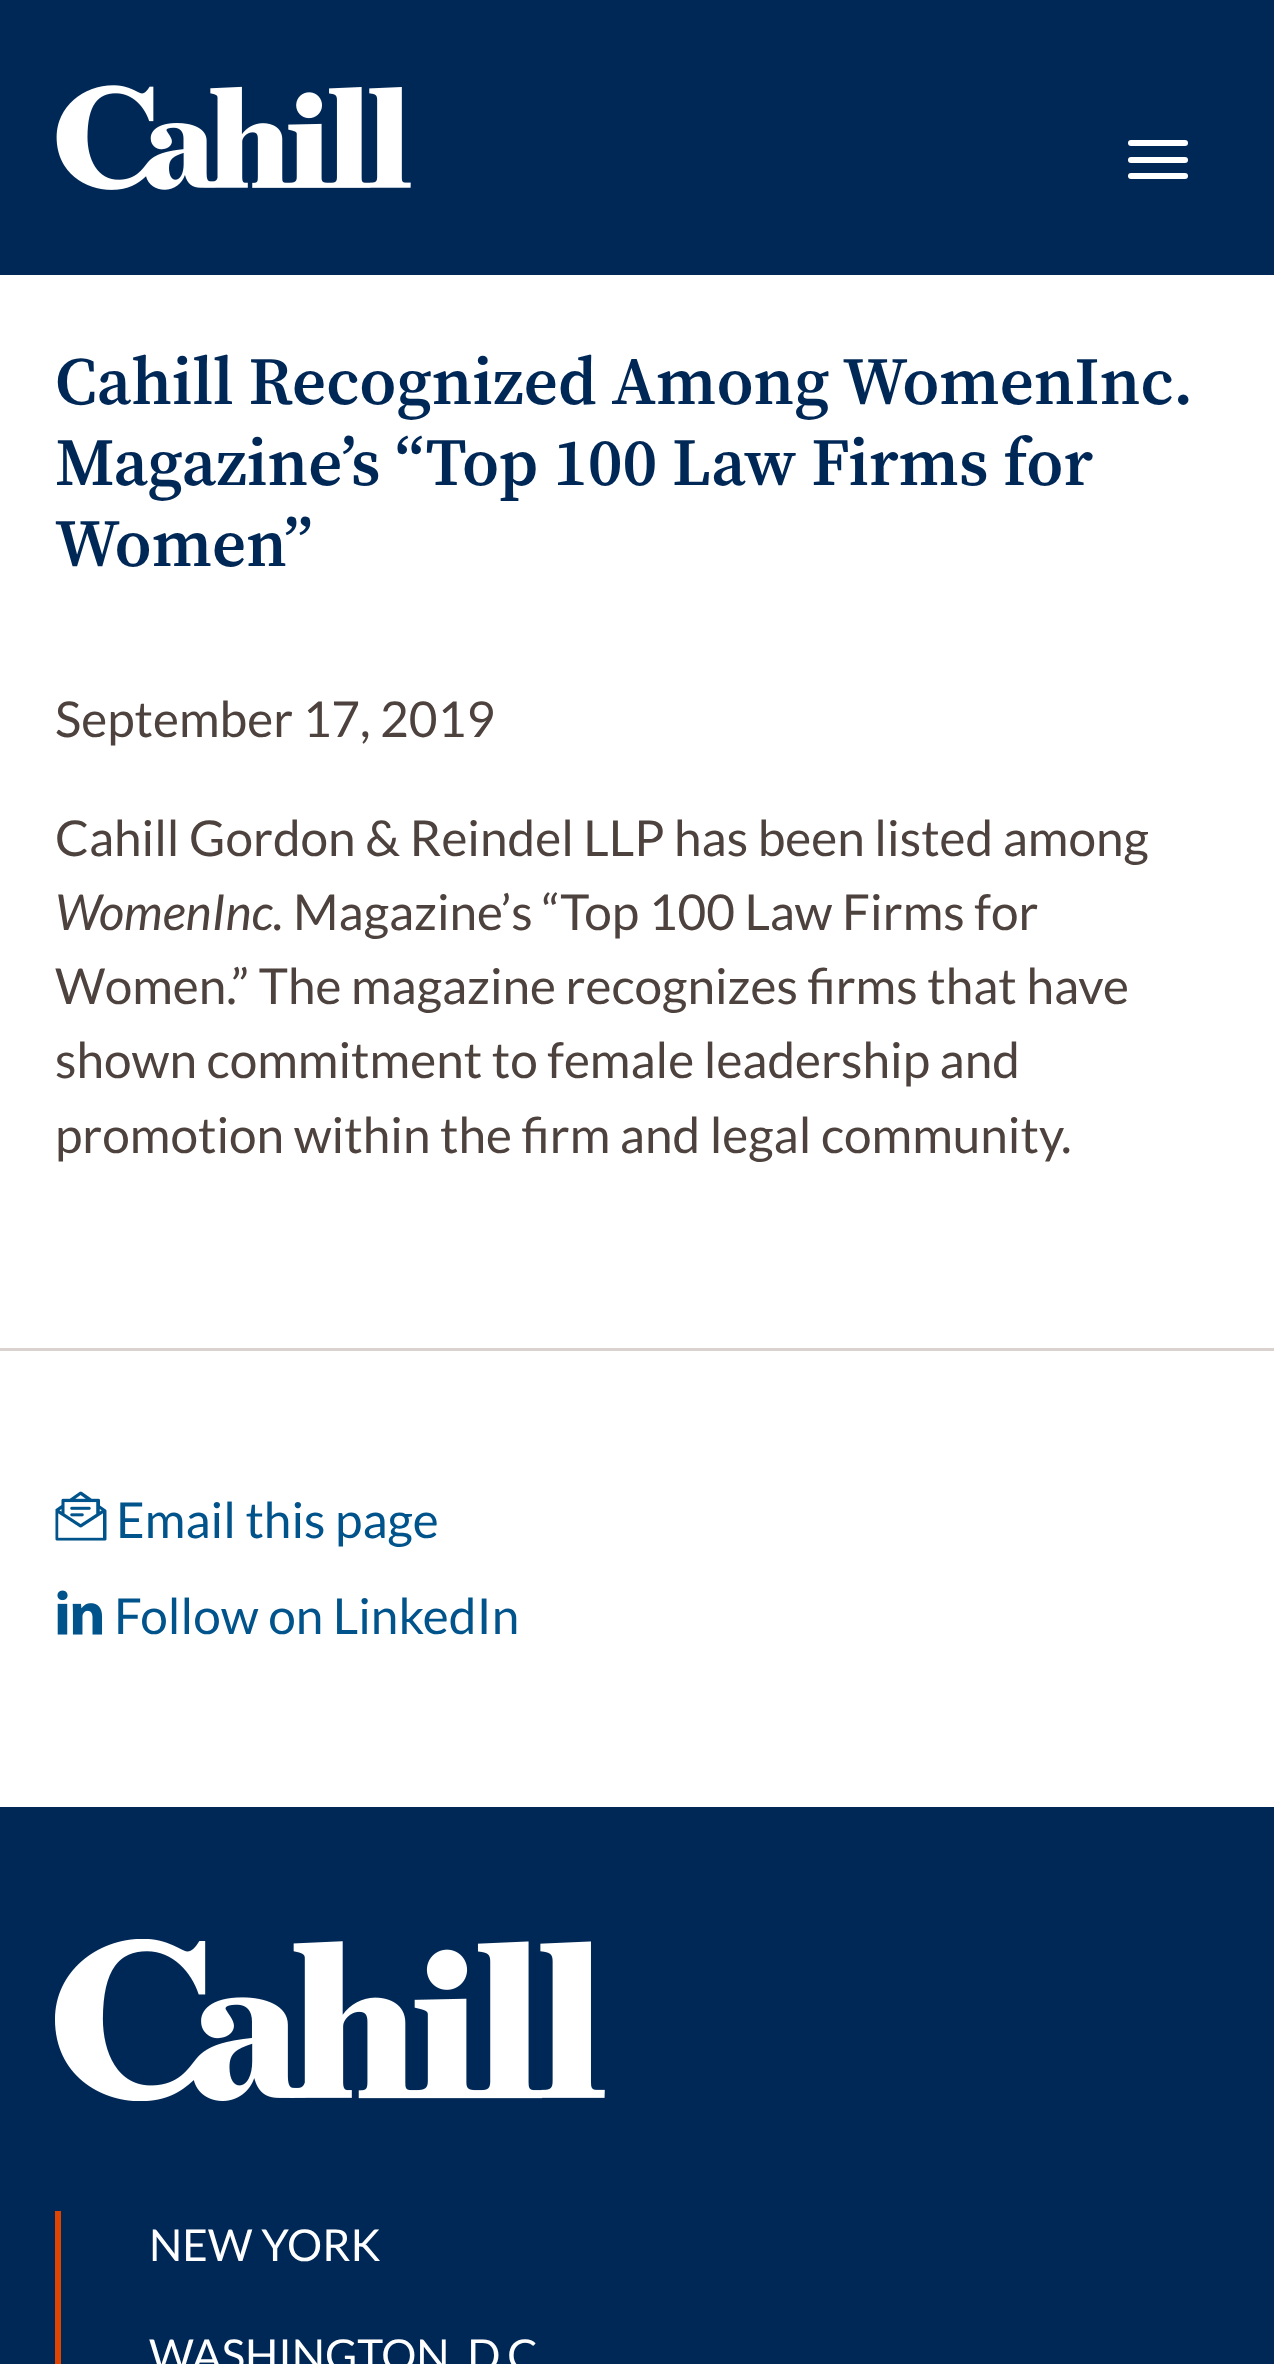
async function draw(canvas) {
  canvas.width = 1274;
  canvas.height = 2364;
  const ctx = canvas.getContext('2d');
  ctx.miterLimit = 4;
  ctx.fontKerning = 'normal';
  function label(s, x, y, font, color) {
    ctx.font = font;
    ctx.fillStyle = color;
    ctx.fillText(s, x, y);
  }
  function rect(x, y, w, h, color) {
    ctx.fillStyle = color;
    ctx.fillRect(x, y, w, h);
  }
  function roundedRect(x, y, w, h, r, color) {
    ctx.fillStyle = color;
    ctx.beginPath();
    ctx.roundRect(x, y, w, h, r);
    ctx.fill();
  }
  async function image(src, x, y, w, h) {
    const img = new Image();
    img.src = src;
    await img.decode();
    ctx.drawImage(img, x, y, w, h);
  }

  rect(0, 0, 1274, 2364, '#fff');
  rect(0, 0, 1274, 275, '#002857');
  await image('assets/img1.png', 56, 85, 355, 105);
  roundedRect(1128, 140, 60, 6, 3, '#fff');
  roundedRect(1128, 157, 60, 6, 3, '#fff');
  roundedRect(1128, 173, 60, 6, 3, '#fff');
  label('Cahill Recognized Among WomenInc.', 55, 404, '600 67.3px "Source Serif 4"', '#002857');
  label('Magazine’s “Top 100 Law Firms for', 55, 485, '600 67.3px "Source Serif 4"', '#002857');
  label('Women”', 55, 566, '600 67.3px "Source Serif 4"', '#002857');
  label('September 17, 2019', 55, 737, '49.5px Lato', '#4d423d');
  label('Cahill Gordon & Reindel LLP has been listed among', 55, 856, '49.5px Lato', '#4d423d');
  label('WomenInc.', 55, 930, 'italic 49.5px Lato', '#4d423d');
  label('Magazine’s “Top 100 Law Firms for', 293, 930, '49.5px Lato', '#4d423d');
  label('Women.” The magazine recognizes firms that have', 55, 1004, '49.5px Lato', '#4d423d');
  label('shown commitment to female leadership and', 55, 1078, '49.5px Lato', '#4d423d');
  label('promotion within the firm and legal community.', 55, 1153, '49.5px Lato', '#4d423d');
  rect(0, 1348, 1274, 3, '#d9d2cf');
  await image('assets/img2.png', 55, 1491, 52, 50);
  label('Email this page', 116, 1538, '49.5px Lato', '#00538b');
  await image('assets/img3.png', 57, 1590, 46, 45);
  label('Follow on LinkedIn', 114, 1634, '49.5px Lato', '#00538b');
  rect(0, 1807, 1274, 557, '#002857');
  await image('assets/img4.png', 55, 1939, 550, 162);
  rect(55, 2211, 6, 153, '#e04403');
  label('NEW YORK', 149, 2261, '44px Lato', '#fff');
  label('WASHINGTON, D.C', 149, 2371, '44px Lato', '#fff');
}

draw(document.querySelector('canvas'));
